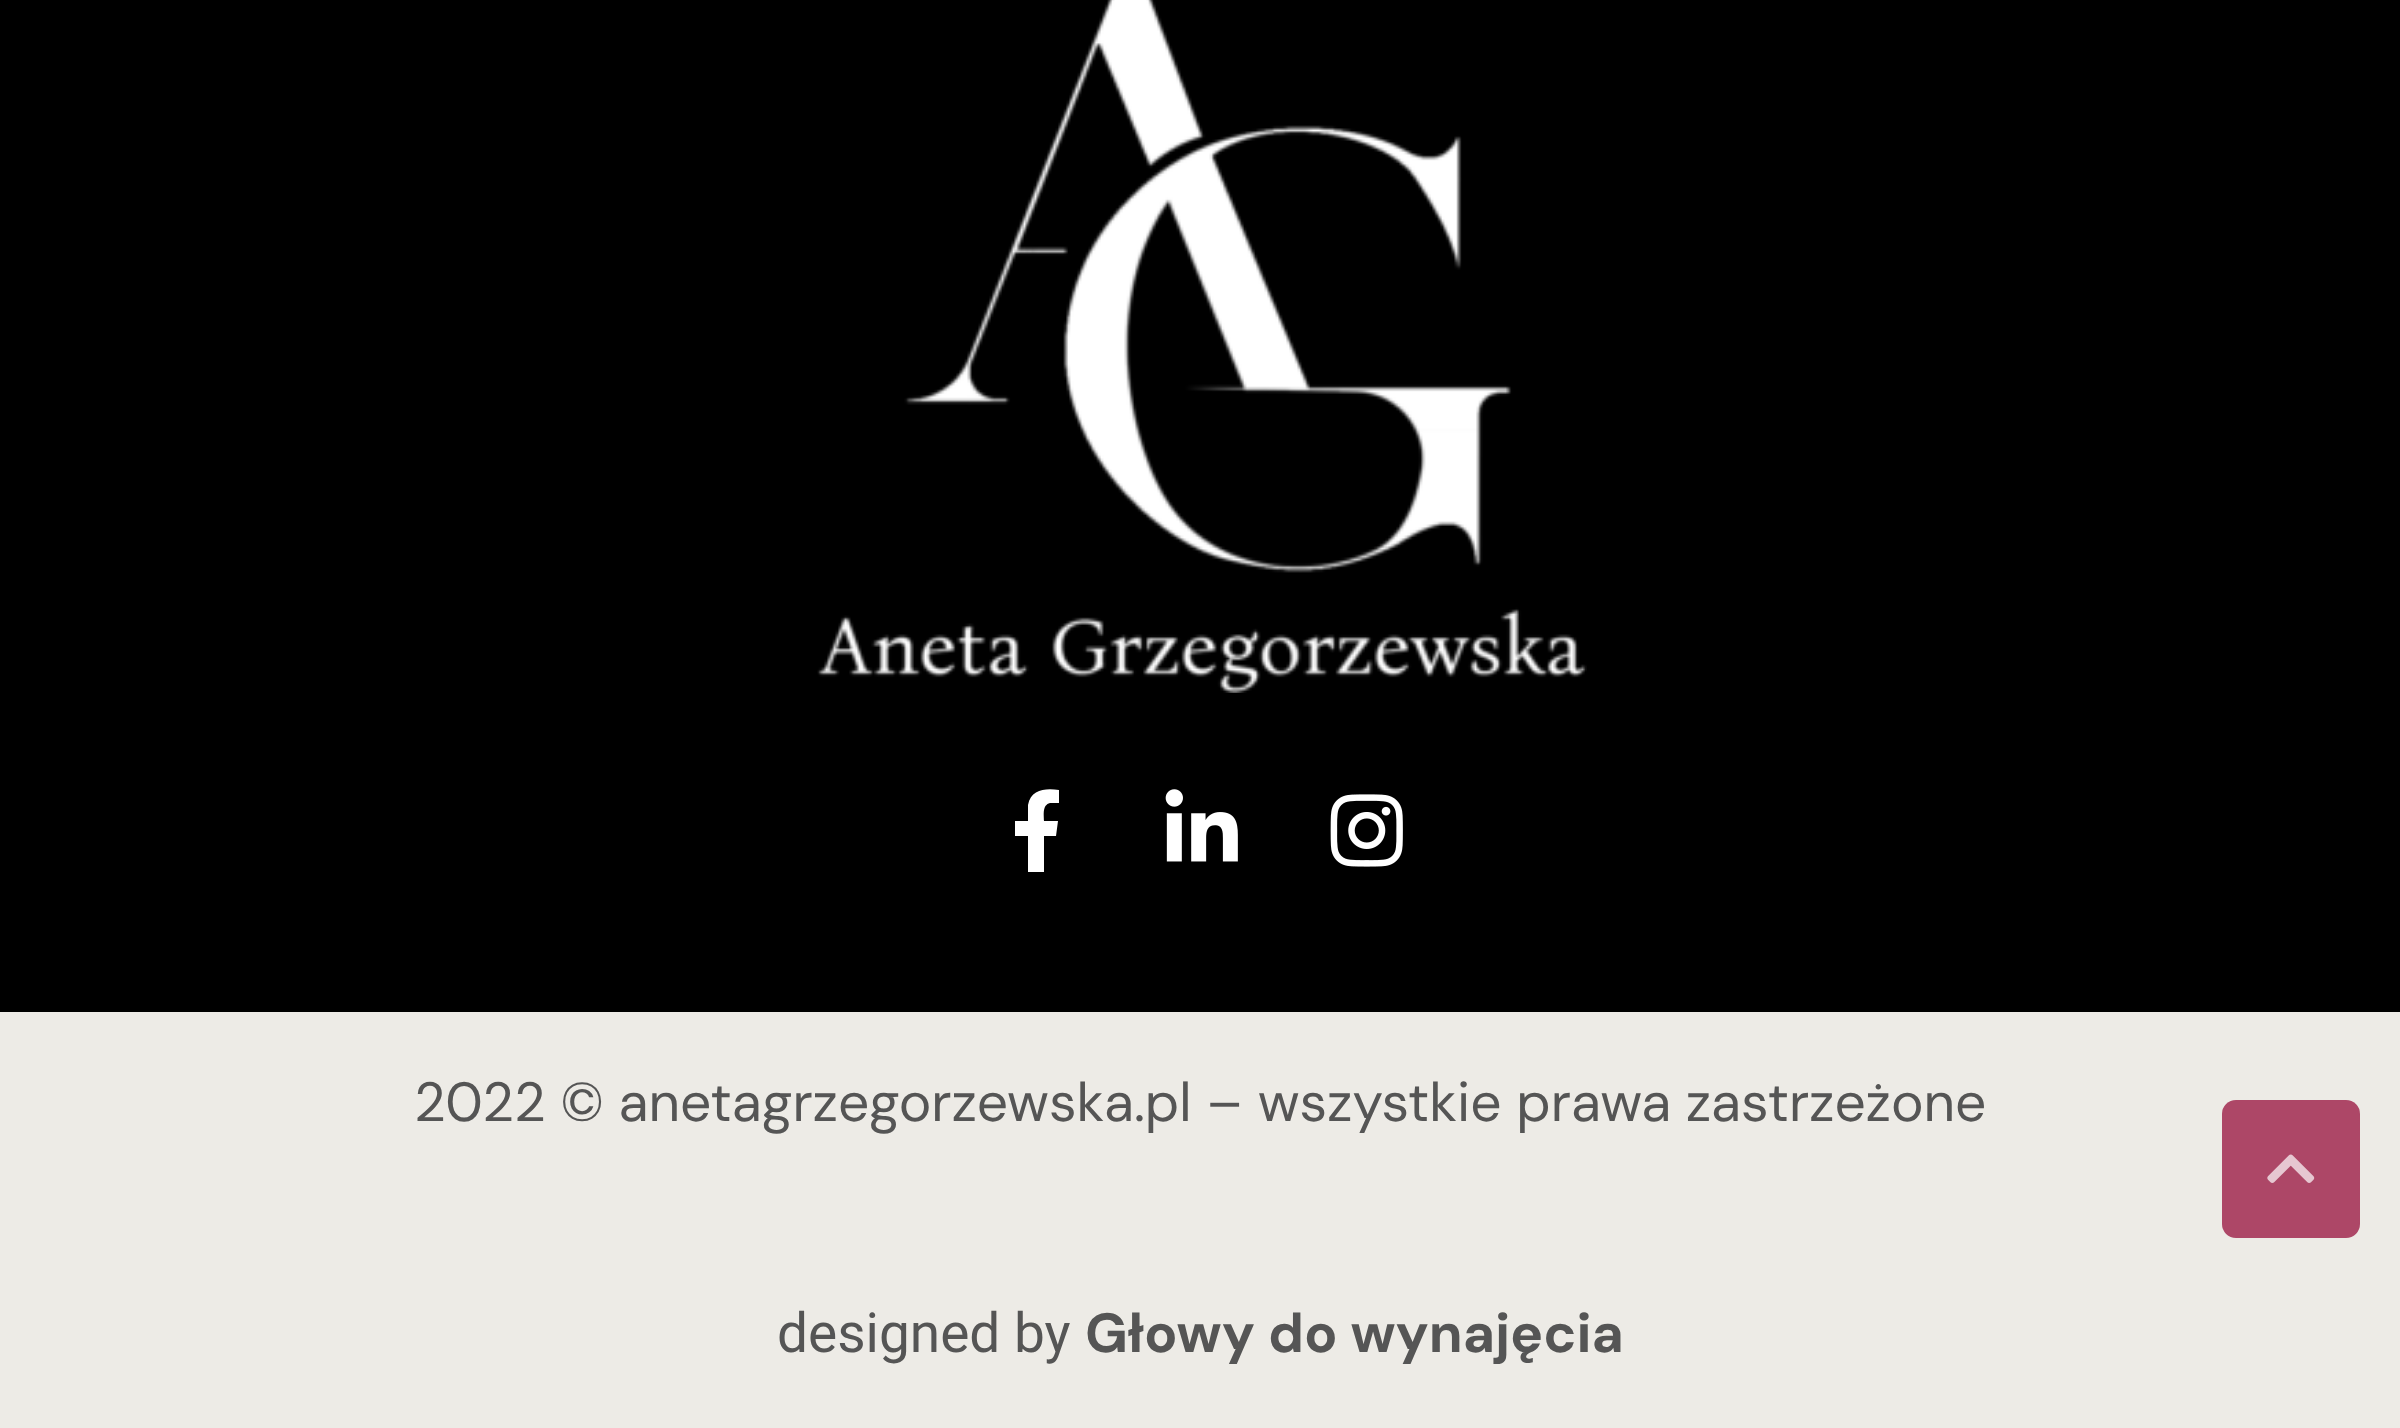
async function draw(canvas) {
  canvas.width = 2400;
  canvas.height = 1428;
  const ctx = canvas.getContext('2d');
  ctx.miterLimit = 4;
  ctx.fontKerning = 'normal';
  function label(s, x, y, font, color) {
    ctx.font = font;
    ctx.fillStyle = color;
    ctx.fillText(s, x, y);
  }
  function rect(x, y, w, h, color) {
    ctx.fillStyle = color;
    ctx.fillRect(x, y, w, h);
  }
  function roundedRect(x, y, w, h, r, color) {
    ctx.fillStyle = color;
    ctx.beginPath();
    ctx.roundRect(x, y, w, h, r);
    ctx.fill();
  }
  async function image(src, x, y, w, h) {
    const img = new Image();
    img.src = src;
    await img.decode();
    ctx.drawImage(img, x, y, w, h);
  }
  let path;

  rect(0, 0, 2400, 1428, '#000');
  await image('assets/img1.png', 817, 0, 770, 693);
  ctx.fillStyle = '#fff';
  path = new Path2D('M1056 836L1058 821H1044C1044 815 1042 805 1050 803H1059V790C1046 788 1031 789 1028 805V821H1015V836H1028V872H1044V836Z');
  ctx.fill(path);
  await image('assets/img2.png', 1165, 789, 73, 73);
  await image('assets/img3.png', 1330, 794, 73, 73);
  rect(0, 1012, 2400, 416, '#edebe6');
  label('2022 © anetagrzegorzewska.pl – wszystkie prawa zastrzeżone', 414, 1121, '55px DM Sans', '#555');
  label('designed by', 777, 1352, '55px Roboto', '#555');
  label('Głowy do wynajęcia', 1085, 1352, 'bold 55px DM Sans', '#555');
  roundedRect(2222, 1100, 138, 138, 14, '#ad4767');
  await image('assets/img4.png', 2267, 1154, 48, 29);
}

draw(document.querySelector('canvas'));
